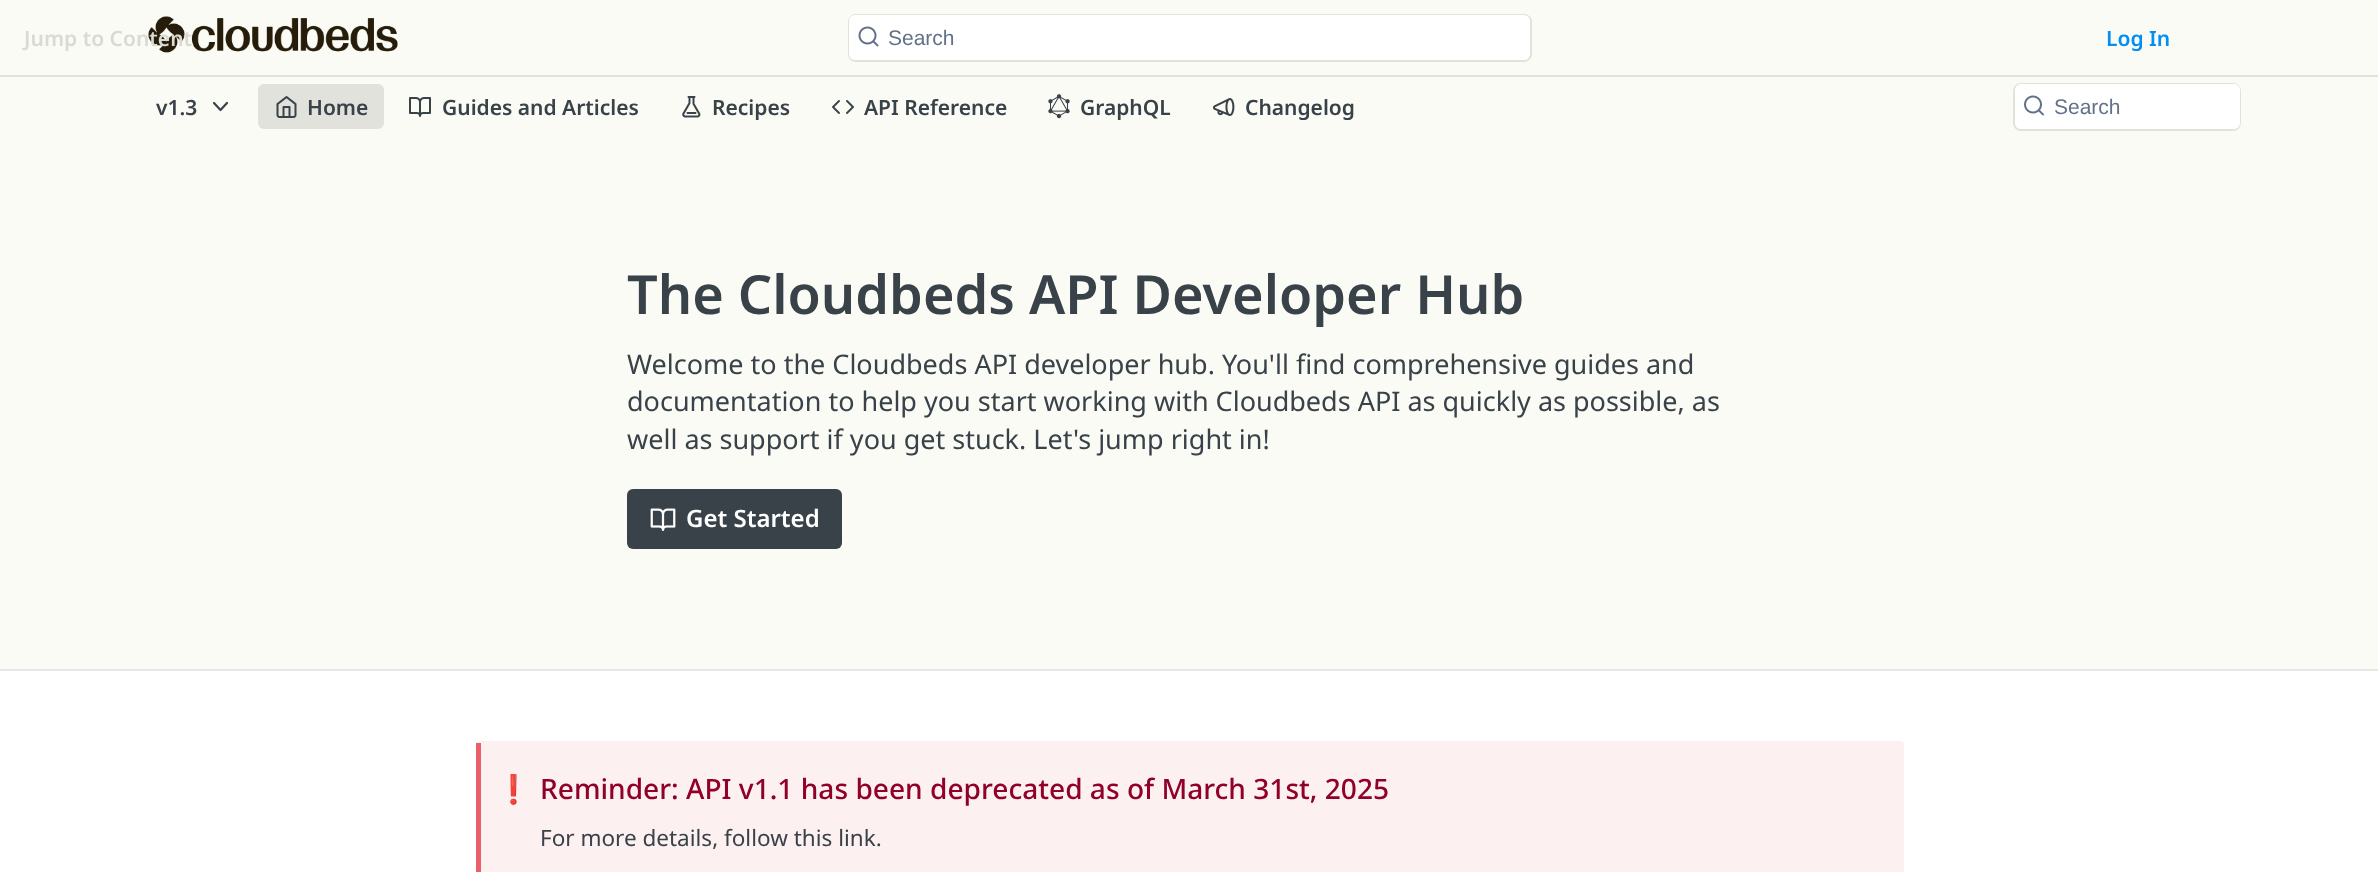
async function draw(canvas) {
  canvas.width = 2378;
  canvas.height = 872;
  const ctx = canvas.getContext('2d');
  ctx.miterLimit = 4;
  ctx.fontKerning = 'normal';
  function label(s, x, y, font, color) {
    ctx.font = font;
    ctx.fillStyle = color;
    ctx.fillText(s, x, y);
  }
  function rect(x, y, w, h, color) {
    ctx.fillStyle = color;
    ctx.fillRect(x, y, w, h);
  }
  function roundedRect(x, y, w, h, r, color) {
    ctx.fillStyle = color;
    ctx.beginPath();
    ctx.roundRect(x, y, w, h, r);
    ctx.fill();
  }
  async function image(src, x, y, w, h) {
    const img = new Image();
    img.src = src;
    await img.decode();
    ctx.drawImage(img, x, y, w, h);
  }
  let path;

  rect(0, 0, 2378, 872, '#fff');
  rect(0, 669, 2378, 2, '#e6e6e6');
  rect(0, 0, 2378, 669, '#fbfbf6');
  rect(0, 75, 2378, 2, '#e2e2dd');
  await image('assets/img1.png', 148, 16, 250, 37);
  label('Jump to Content', 24, 46, '600 21px Noto Sans', '#dad9d2');
  ctx.beginPath();
  ctx.roundRect(849, 15, 682, 46, 7);
  ctx.strokeStyle = '#e2e2dd';
  ctx.lineWidth = 2;
  ctx.stroke();
  roundedRect(849, 15, 681, 45, 6, '#fff');
  await image('assets/img2.png', 858, 26, 21, 21);
  label('Search', 888, 45, '21px Liberation Sans', '#637288');
  label('Log In', 2106, 46, '600 21px Noto Sans', '#018ef5');
  label('v1.3', 156, 115, '600 21px Noto Sans', '#384248');
  path = new Path2D('M214 103L220.5 110L227 103');
  ctx.strokeStyle = '#384248';
  ctx.lineWidth = 2.2;
  ctx.lineCap = 'round';
  ctx.lineJoin = 'round';
  ctx.stroke(path);
  roundedRect(258, 84, 126, 45, 6, '#e2e2dd');
  await image('assets/img3.png', 276, 96, 21, 22);
  label('Home', 307, 115, '600 21px Noto Sans', '#384248');
  await image('assets/img4.png', 409, 97, 22, 20);
  label('Guides and Articles', 442, 115, '600 21px Noto Sans', '#384248');
  await image('assets/img5.png', 682, 96, 19, 22);
  label('Recipes', 712, 115, '600 21px Noto Sans', '#384248');
  await image('assets/img6.png', 832, 100, 22, 14);
  label('API Reference', 864, 115, '600 21px Noto Sans', '#384248');
  await image('assets/img7.png', 1048, 94, 22, 25);
  label('GraphQL', 1080, 115, '600 21px Noto Sans', '#384248');
  await image('assets/img8.png', 1213, 98, 22, 18);
  label('Changelog', 1245, 115, '600 21px Noto Sans', '#384248');
  ctx.beginPath();
  ctx.roundRect(2014, 84, 226, 46, 7);
  ctx.strokeStyle = '#e2e2dd';
  ctx.lineWidth = 2;
  ctx.lineJoin = 'miter';
  ctx.stroke();
  roundedRect(2015, 84, 225, 45, 6, '#fff');
  await image('assets/img9.png', 2024, 95, 20, 21);
  label('Search', 2054, 114, '21px Liberation Sans', '#637288');
  label('The Cloudbeds API Developer Hub', 627, 314, '600 54px Noto Sans', '#384248');
  label('Welcome to the Cloudbeds API developer hub. You\'ll find comprehensive guides and', 627, 374, '27px Noto Sans', '#384248');
  label('documentation to help you start working with Cloudbeds API as quickly as possible, as', 627, 411, '27px Noto Sans', '#384248');
  label('well as support if you get stuck. Let\'s jump right in!', 627, 449, '27px Noto Sans', '#384248');
  roundedRect(627, 489, 215, 60, 6, '#384248');
  await image('assets/img10.png', 650, 508, 26, 23);
  label('Get Started', 686, 527, '600 24px Noto Sans', '#fff');
  ctx.fillStyle = '#fdf0f1';
  path = new Path2D('M479 741H1901C1902.5 741 1904 742.5 1904 744V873H476V744C476 742.5 477.5 741 479 741Z');
  ctx.fill(path);
  rect(476, 743, 5, 129, '#e95f6a');
  label('❗️', 496, 799, '28.1px Noto Color Emoji', '#900027');
  label('Reminder: API v1.1 has been deprecated as of March 31st, 2025', 540, 799, '500 28.1px Noto Sans', '#900027');
  label('For more details, follow this link.', 540, 846, '22.5px Noto Sans', '#384248');
}

draw(document.querySelector('canvas'));
